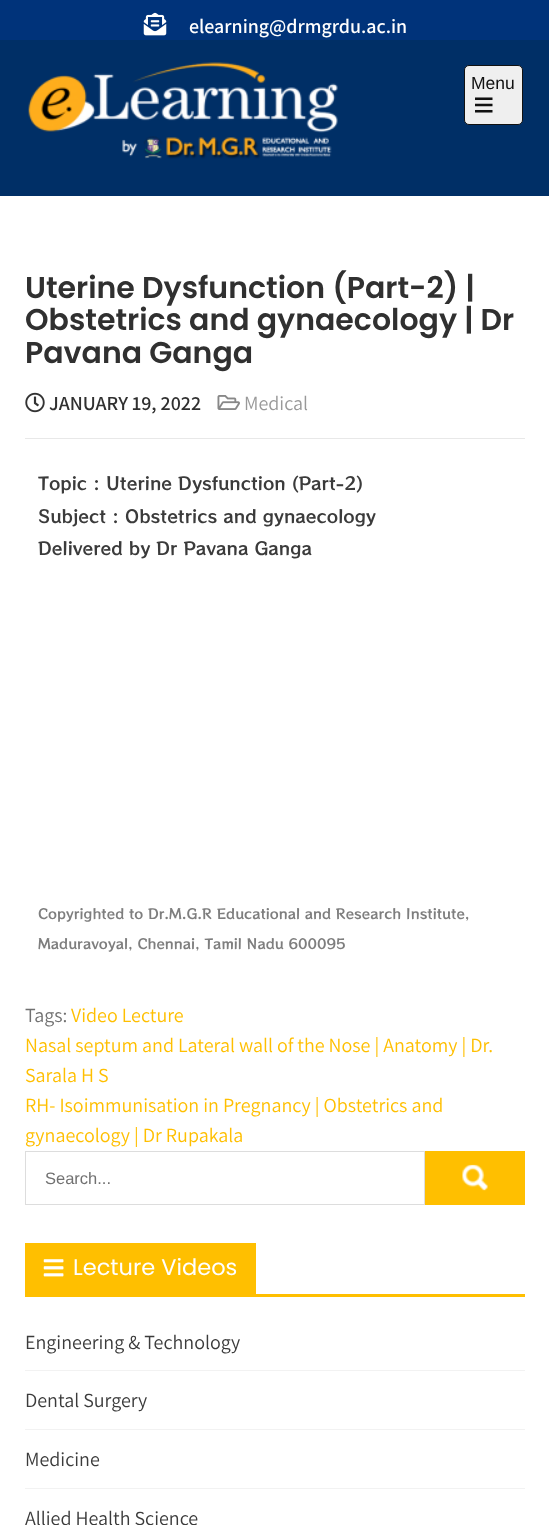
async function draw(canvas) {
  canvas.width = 549;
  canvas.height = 1525;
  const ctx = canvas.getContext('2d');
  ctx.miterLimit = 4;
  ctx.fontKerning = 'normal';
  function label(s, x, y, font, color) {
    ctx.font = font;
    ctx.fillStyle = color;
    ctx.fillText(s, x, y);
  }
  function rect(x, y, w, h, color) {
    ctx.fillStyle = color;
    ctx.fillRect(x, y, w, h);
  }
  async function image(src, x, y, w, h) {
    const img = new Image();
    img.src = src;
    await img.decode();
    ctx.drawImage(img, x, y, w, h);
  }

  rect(0, 0, 549, 1525, '#fff');
  rect(0, 40, 549, 156, '#002f66');
  rect(0, 0, 549, 40, '#00337a');
  await image('assets/img1.png', 143, 12, 24, 24);
  label('elearning@drmgrdu.ac.in', 189, 33, '600 20px Assistant', '#fff');
  await image('assets/img2.png', 28, 62, 310, 97);
  ctx.fillStyle = '#efefef';
  ctx.beginPath();
  ctx.roundRect(464.5, 65.5, 58, 59, 4.5);
  ctx.fill();
  ctx.strokeStyle = '#111';
  ctx.stroke();
  label('Menu', 471, 89, '17.5px Liberation Sans', '#111');
  await image('assets/img3.png', 475, 97, 18, 16);
  label('Uterine Dysfunction (Part-2) |', 25, 298, '600 30px Poppins', '#303030');
  label('Obstetrics and gynaecology | Dr', 25, 330, '600 30px Poppins', '#303030');
  label('Pavana Ganga', 25, 363, '600 30px Poppins', '#303030');
  rect(25, 438, 500, 1, '#e8e8e8');
  await image('assets/img4.png', 25, 392, 20, 21);
  label('JANUARY 19, 2022', 49, 410, '600 20px Assistant', '#303030');
  await image('assets/img5.png', 217, 395, 23, 15);
  label('Medical', 244, 410, '20px Assistant', '#999');
  label('Topic : Uterine Dysfunction (Part-2)', 38, 490, '17.5px RocknRoll One', '#3b3b3b');
  label('Subject : Obstetrics and gynaecology', 38, 523, '17.5px RocknRoll One', '#3b3b3b');
  label('Delivered by Dr Pavana Ganga', 38, 555, '17.5px RocknRoll One', '#3b3b3b');
  label('Copyrighted to Dr.M.G.R Educational and Research Institute,', 38, 919, '13.75px RocknRoll One', '#7e7e7e');
  label('Maduravoyal, Chennai, Tamil Nadu 600095', 38, 949, '13.75px RocknRoll One', '#7e7e7e');
  label('Tags:', 25, 1022, '20px Assistant', '#717171');
  label('Video Lecture', 71, 1022, '20px Assistant', '#ffbf00');
  label('Nasal septum and Lateral wall of the Nose | Anatomy | Dr.', 25, 1052, '20px Assistant', '#ffbf00');
  label('Sarala H S', 25, 1082, '20px Assistant', '#ffbf00');
  label('RH- Isoimmunisation in Pregnancy | Obstetrics and', 25, 1112, '20px Assistant', '#ffbf00');
  label('gynaecology | Dr Rupakala', 25, 1142, '20px Assistant', '#ffbf00');
  ctx.strokeStyle = '#ddd';
  ctx.strokeRect(25.5, 1151.5, 399, 53);
  label('Search...', 45, 1184, '16.5px Liberation Sans', '#717171');
  rect(425, 1151, 100, 54, '#ffbf00');
  await image('assets/img6.png', 462, 1164, 26, 27);
  rect(25, 1294, 500, 3, '#ffbf00');
  rect(25, 1243, 231, 51, '#ffbf00');
  await image('assets/img7.png', 43, 1259, 21, 18);
  label('Lecture Videos', 73, 1275, '22.5px Poppins', '#fff');
  rect(25, 1370, 500, 1, '#f2f2f2');
  label('Engineering & Technology', 25, 1349, '20px Assistant', '#3b3b3b');
  rect(25, 1429, 500, 1, '#f2f2f2');
  label('Dental Surgery', 25, 1407, '20px Assistant', '#3b3b3b');
  rect(25, 1488, 500, 1, '#f2f2f2');
  label('Medicine', 25, 1466, '20px Assistant', '#3b3b3b');
  label('Allied Health Science', 25, 1525, '20px Assistant', '#3b3b3b');
}

draw(document.querySelector('canvas'));
